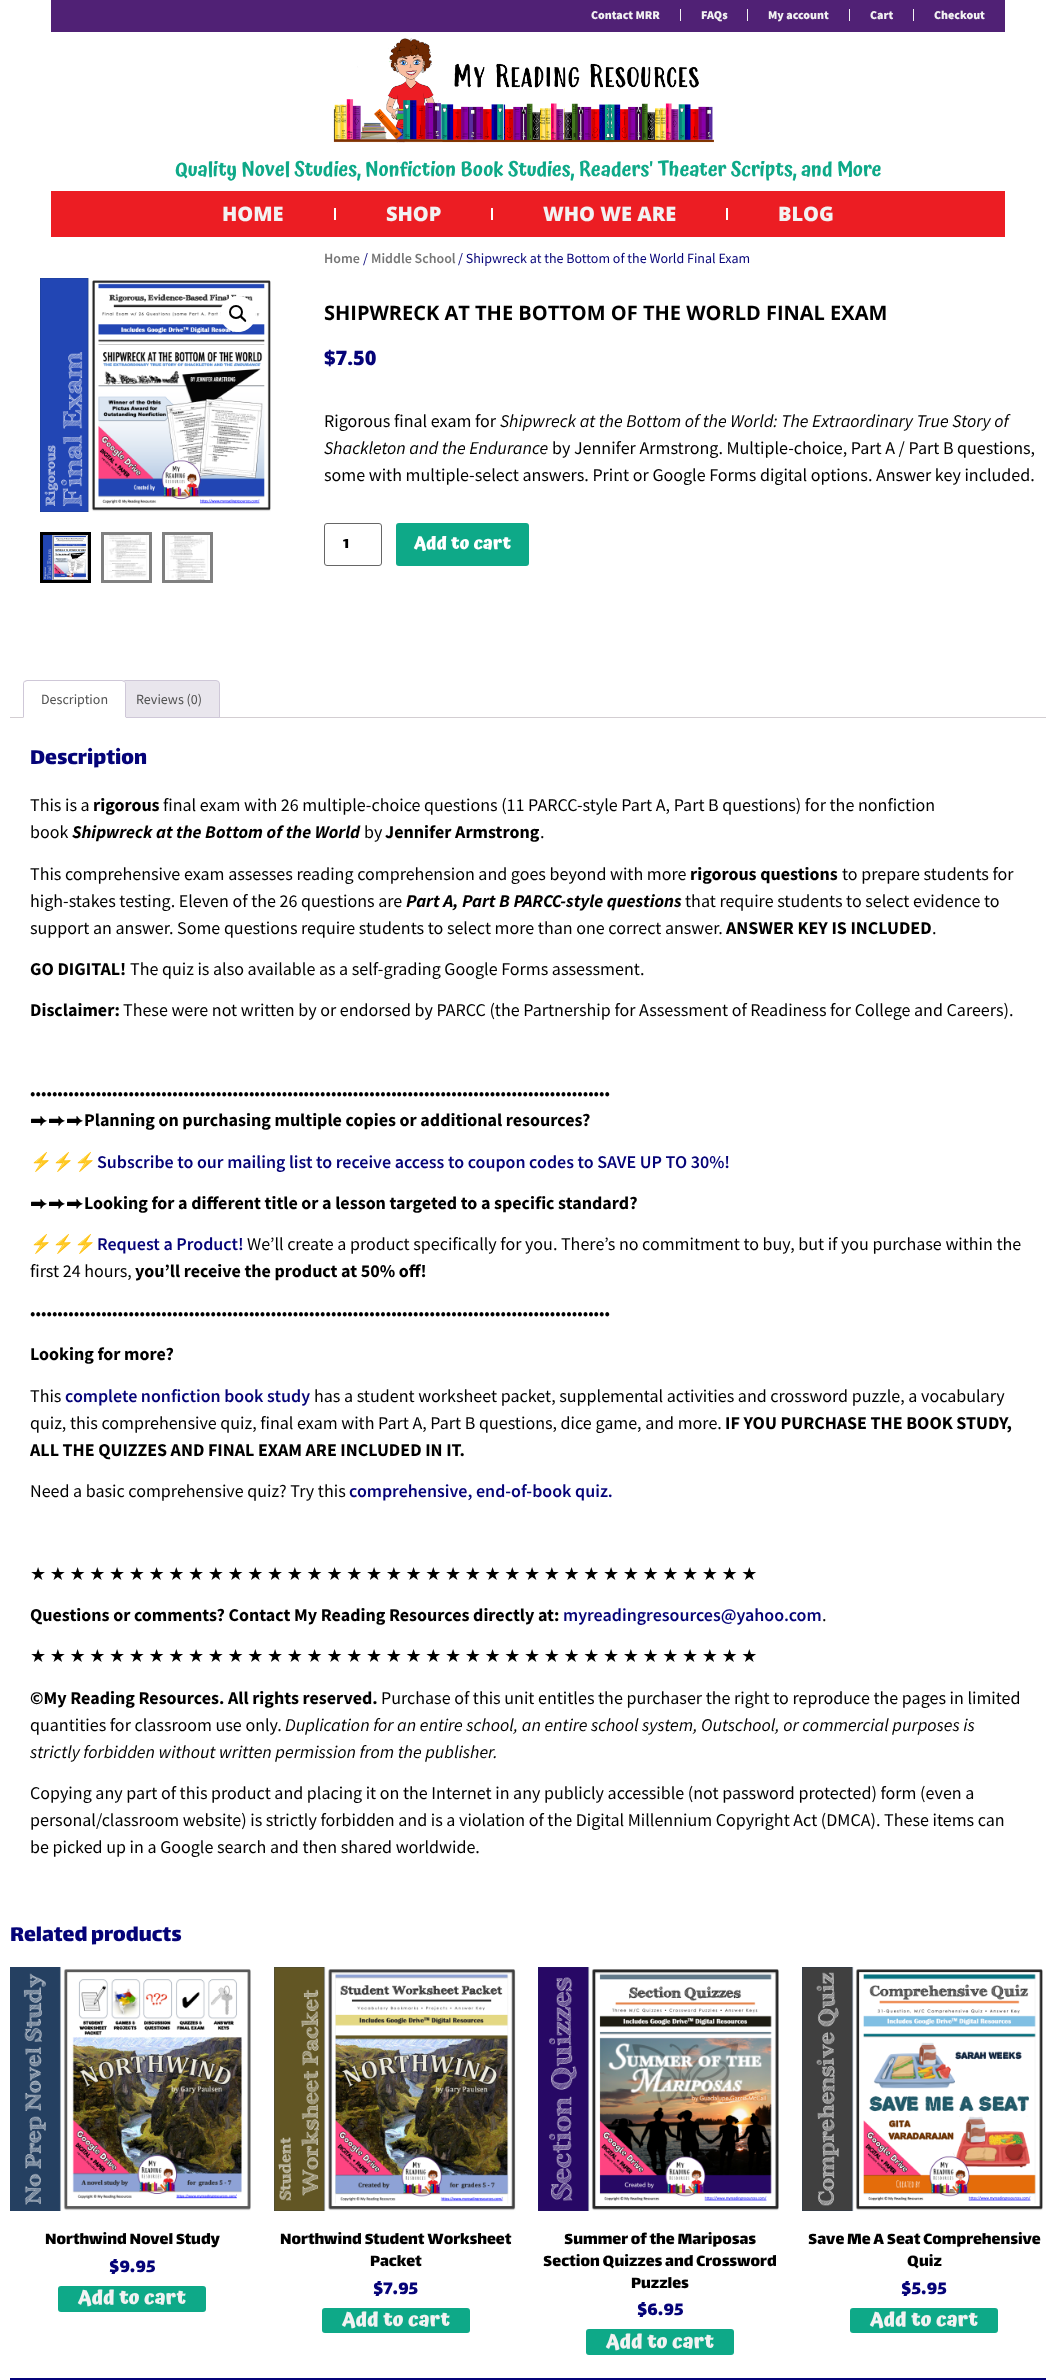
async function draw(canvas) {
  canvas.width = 1056;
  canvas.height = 2380;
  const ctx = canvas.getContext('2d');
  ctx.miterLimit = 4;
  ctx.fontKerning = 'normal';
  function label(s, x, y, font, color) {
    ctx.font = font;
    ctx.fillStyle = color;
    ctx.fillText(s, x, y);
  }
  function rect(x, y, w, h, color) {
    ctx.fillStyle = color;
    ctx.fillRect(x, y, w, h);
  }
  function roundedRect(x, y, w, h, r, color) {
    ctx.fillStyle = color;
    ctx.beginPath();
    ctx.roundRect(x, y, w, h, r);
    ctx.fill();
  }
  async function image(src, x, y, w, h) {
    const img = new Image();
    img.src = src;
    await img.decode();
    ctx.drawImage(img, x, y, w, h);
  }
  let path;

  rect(0, 0, 1056, 2380, '#fff');
  rect(51, 0, 954, 32, '#502175');
  label('Contact MRR', 591, 19, '900 12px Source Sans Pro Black', '#f2f2f2');
  rect(680, 9, 1, 12, '#f2f2f2');
  label('FAQs', 701, 19, '900 12px Source Sans Pro Black', '#f2f2f2');
  rect(747, 9, 1, 12, '#f2f2f2');
  label('My account', 768, 19, '900 12px Source Sans Pro Black', '#f2f2f2');
  rect(849, 9, 1, 12, '#f2f2f2');
  label('Cart', 870, 19, '900 12px Source Sans Pro Black', '#f2f2f2');
  rect(913, 9, 1, 12, '#f2f2f2');
  label('Checkout', 934, 19, '900 12px Source Sans Pro Black', '#f2f2f2');
  await image('assets/img1.png', 333, 38, 381, 105);
  label('Quality Novel Studies, Nonfiction Book Studies, Readers\' Theater Scripts, and More', 175, 176, '600 20px Atma', '#0ea988');
  rect(51, 191, 954, 46, '#ec1d23');
  label('HOME', 222, 221, '800 20px Open Sans', '#f2f2f2');
  rect(334, 208, 2, 12, '#fff');
  label('SHOP', 386, 221, '800 20px Open Sans', '#f2f2f2');
  rect(491, 208, 2, 12, '#fff');
  label('WHO WE ARE', 543, 221, '800 20px Open Sans', '#f2f2f2');
  rect(726, 208, 2, 12, '#fff');
  label('BLOG', 778, 221, '800 20px Open Sans', '#f2f2f2');
  await image('assets/img2.png', 40, 278, 231, 234);
  ctx.fillStyle = '#fff';
  ctx.beginPath();
  ctx.arc(238, 314, 18, 0, 2 * Math.PI);
  ctx.fill();
  ctx.beginPath();
  ctx.arc(236, 312, 6, 0, 2 * Math.PI);
  ctx.strokeStyle = '#000';
  ctx.lineWidth = 2;
  ctx.stroke();
  ctx.fillStyle = '#000';
  path = new Path2D('M240.5 316C241.5 315 243.5 317.5 244 318C244.5 318.5 247 320.5 246 321.5C245 323 243 320 242.5 319.5C242 319 239 317 240.5 316Z');
  ctx.fill(path);
  ctx.lineWidth = 3;
  ctx.strokeRect(41.5, 533.5, 48, 48);
  await image('assets/img3.png', 43, 535, 45, 45);
  ctx.strokeStyle = '#808080';
  ctx.strokeRect(102.5, 533.5, 48, 48);
  await image('assets/img4.png', 105, 535, 42, 45);
  ctx.strokeRect(163.5, 533.5, 48, 48);
  await image('assets/img5.png', 166, 535, 42, 45);
  label('Home', 324, 263, '600 14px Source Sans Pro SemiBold', '#767676');
  label('/', 363, 263, '14px Source Sans Pro', '#050378');
  label('Middle School', 371, 263, '600 14px Source Sans Pro SemiBold', '#767676');
  label('/ Shipwreck at the Bottom of the World Final Exam', 458, 263, '14px Source Sans Pro', '#050378');
  label('SHIPWRECK AT THE BOTTOM OF THE WORLD FINAL EXAM', 324, 320, 'bold 20px Open Sans', '#000');
  label('$7.50', 324, 365, '800 20px Open Sans', '#050378');
  label('Rigorous final exam for', 324, 427, '18px Source Sans Pro', '#000');
  label('Shipwreck at the Bottom of the World: The Extraordinary True Story of', 500, 427, 'italic 18px Source Sans Pro', '#000');
  label('Shackleton and the Endurance', 324, 454, 'italic 18px Source Sans Pro', '#000');
  label('by Jennifer Armstrong. Multiple-choice, Part A / Part B questions,', 552, 454, '18px Source Sans Pro', '#000');
  label('some with multiple-select answers. Print or Google Forms digital options. Answer key included.', 324, 481, '18px Source Sans Pro', '#000');
  ctx.beginPath();
  ctx.roundRect(324.5, 523.5, 57, 42, 2.5);
  ctx.strokeStyle = '#666';
  ctx.lineWidth = 1;
  ctx.stroke();
  label('1', 343, 548, '16px Lalezar', '#000');
  roundedRect(396, 523, 133, 43, 3, '#0ea988');
  label('Add to cart', 414, 549, 'bold 18px Atma', '#fff');
  rect(10, 717, 1036, 1, '#d3ced2');
  ctx.fillStyle = '#e9e6ed';
  ctx.beginPath();
  ctx.roundRect(118.5, 680.5, 101, 37, [3.5, 3.5, 0, 0]);
  ctx.fill();
  ctx.strokeStyle = '#cfc8d8';
  ctx.stroke();
  ctx.fillStyle = '#fff';
  ctx.beginPath();
  ctx.roundRect(23, 680, 103, 38, [4, 4, 0, 0]);
  ctx.fill();
  ctx.fillStyle = '#cfc8d8';
  path = new Path2D('M27 680L24 681L25 682L27 681H122L124 682L125 681L122 680Z');
  ctx.fill(path);
  path = new Path2D('M126 718V684C126 683 125.5 682 125 681L124 682C125 682 125 683 125 684V717Z');
  ctx.fill(path);
  ctx.fillStyle = '#fff';
  path = new Path2D('M126 718L125 717H24L23 718Z');
  ctx.fill(path);
  ctx.fillStyle = '#cfc8d8';
  path = new Path2D('M23 718L24 717V684C24 683 24 682 25 682L24 681C23.5 682 23 683 23 684Z');
  ctx.fill(path);
  label('Description', 41, 704, '14px Source Sans Pro', '#515151');
  label('Reviews (0)', 136, 704, '14px Source Sans Pro', '#515151');
  label('Description', 30, 764, '24px Lalezar', '#050378');
  label('This is a', 30, 811, '18px Source Sans Pro', '#000');
  label('rigorous', 93, 811, 'bold 18px Source Sans Pro', '#000');
  label('final exam with 26 multiple-choice questions (11 PARCC-style Part A, Part B questions) for the nonfiction', 163, 811, '18px Source Sans Pro', '#000');
  label('book', 30, 838, '18px Source Sans Pro', '#000');
  label('Shipwreck at the Bottom of the World', 72, 838, 'italic bold 18px Source Sans Pro', '#000');
  label('by', 364, 838, '18px Source Sans Pro', '#000');
  label('Jennifer Armstrong', 385, 838, 'bold 18px Source Sans Pro', '#000');
  label('.', 540, 838, '18px Source Sans Pro', '#000');
  label('This comprehensive exam assesses reading comprehension and goes beyond with more', 30, 880, '18px Source Sans Pro', '#000');
  label('rigorous questions', 690, 880, 'bold 18px Source Sans Pro', '#000');
  label('to prepare students for', 842, 880, '18px Source Sans Pro', '#000');
  label('high-stakes testing. Eleven of the 26 questions are', 30, 907, '18px Source Sans Pro', '#000');
  label('Part A, Part B PARCC-style questions', 406, 907, 'italic bold 18px Source Sans Pro', '#000');
  label('that require students to select evidence to', 685, 907, '18px Source Sans Pro', '#000');
  label('support an answer. Some questions require students to select more than one correct answer.', 30, 934, '18px Source Sans Pro', '#000');
  label('ANSWER KEY IS INCLUDED', 726, 934, 'bold 18px Source Sans Pro', '#000');
  label('.', 932, 934, '18px Source Sans Pro', '#000');
  label('GO DIGITAL!', 30, 975, 'bold 18px Source Sans Pro', '#000');
  label('The quiz is also available as a self-grading Google Forms assessment.', 130, 975, '18px Source Sans Pro', '#000');
  label('Disclaimer:', 30, 1016, 'bold 18px Source Sans Pro', '#000');
  label('These were not written by or endorsed by PARCC (the Partnership for Assessment of Readiness for College and Careers).', 123, 1016, '18px Source Sans Pro', '#000');
  label('••••••••••••••••••••••••••••••••••••••••••••••••••••••••••••••••••••••••••••••••••••••••••••••••••••••••••', 30, 1099, '18px Source Sans Pro', '#000');
  label('⮕⮕⮕', 30, 1126, '18px FreeSans', '#000');
  label('Planning on purchasing multiple copies or additional resources?', 84, 1126, 'bold 18px Source Sans Pro', '#000');
  label('⚡⚡⚡', 30, 1168, '18px Noto Color Emoji', '#000');
  label('Subscribe to our mailing list to receive access to coupon codes to SAVE UP TO 30%!', 97, 1168, '600 18px Source Sans Pro SemiBold', '#050378');
  label('⮕⮕⮕', 30, 1209, '18px FreeSans', '#000');
  label('Looking for a different title or a lesson targeted to a specific standard?', 84, 1209, 'bold 18px Source Sans Pro', '#000');
  label('⚡⚡⚡', 30, 1250, '18px Noto Color Emoji', '#000');
  label('Request a Product!', 97, 1250, '600 18px Source Sans Pro SemiBold', '#050378');
  label('We’ll create a product specifically for you. There’s no commitment to buy, but if you purchase within the', 247, 1250, '18px Source Sans Pro', '#000');
  label('first 24 hours,', 30, 1277, '18px Source Sans Pro', '#000');
  label('you’ll receive the product at 50% off!', 135, 1277, 'bold 18px Source Sans Pro', '#000');
  label('••••••••••••••••••••••••••••••••••••••••••••••••••••••••••••••••••••••••••••••••••••••••••••••••••••••••••', 30, 1319, '18px Source Sans Pro', '#000');
  label('Looking for more?', 30, 1360, 'bold 18px Source Sans Pro', '#000');
  label('This', 30, 1402, '18px Source Sans Pro', '#000');
  label('complete nonfiction book study', 65, 1402, '600 18px Source Sans Pro SemiBold', '#050378');
  label('has a student worksheet packet, supplemental activities and crossword puzzle, a vocabulary', 314, 1402, '18px Source Sans Pro', '#000');
  label('quiz, this comprehensive quiz, final exam with Part A, Part B questions, dice game, and more.', 30, 1429, '18px Source Sans Pro', '#000');
  label('IF YOU PURCHASE THE BOOK STUDY,', 725, 1429, 'bold 18px Source Sans Pro', '#000');
  label('ALL THE QUIZZES AND FINAL EXAM ARE INCLUDED IN IT.', 30, 1456, 'bold 18px Source Sans Pro', '#000');
  label('Need a basic comprehensive quiz? Try this', 30, 1497, '18px Source Sans Pro', '#000');
  label('comprehensive, end-of-book quiz.', 349, 1497, '600 18px Source Sans Pro SemiBold', '#050378');
  ctx.wordSpacing = '-2.1px';
  label('★ ★ ★ ★ ★ ★ ★ ★ ★ ★ ★ ★ ★ ★ ★ ★ ★ ★ ★ ★ ★ ★ ★ ★ ★ ★ ★ ★ ★ ★ ★ ★ ★ ★ ★ ★ ★', 30, 1580, '18px DejaVu Sans', '#000');
  ctx.wordSpacing = '0px';
  label('Questions or comments? Contact My Reading Resources directly at:', 30, 1621, 'bold 18px Source Sans Pro', '#000');
  label('myreadingresources@yahoo.com', 563, 1621, '600 18px Source Sans Pro SemiBold', '#050378');
  label('.', 822, 1621, '18px Source Sans Pro', '#000');
  ctx.wordSpacing = '-2.1px';
  label('★ ★ ★ ★ ★ ★ ★ ★ ★ ★ ★ ★ ★ ★ ★ ★ ★ ★ ★ ★ ★ ★ ★ ★ ★ ★ ★ ★ ★ ★ ★ ★ ★ ★ ★ ★ ★', 30, 1662, '18px DejaVu Sans', '#000');
  ctx.wordSpacing = '0px';
  label('©My Reading Resources. All rights reserved.', 30, 1704, 'bold 18px Source Sans Pro', '#000');
  label('Purchase of this unit entitles the purchaser the right to reproduce the pages in limited', 381, 1704, '18px Source Sans Pro', '#000');
  label('quantities for classroom use only.', 30, 1731, '18px Source Sans Pro', '#000');
  label('Duplication for an entire school, an entire school system, Outschool, or commercial purposes is', 285, 1731, 'italic 18px Source Sans Pro', '#000');
  label('strictly forbidden without written permission from the publisher.', 30, 1758, 'italic 18px Source Sans Pro', '#000');
  label('Copying any part of this product and placing it on the Internet in any publicly accessible (not password protected) form (even a', 30, 1799, '18px Source Sans Pro', '#000');
  label('personal/classroom website) is strictly forbidden and is a violation of the Digital Millennium Copyright Act (DMCA). These items can', 30, 1826, '18px Source Sans Pro', '#000');
  label('be picked up in a Google search and then shared worldwide.', 30, 1853, '18px Source Sans Pro', '#000');
  label('Related products', 10, 1941, '24px Lalezar', '#050378');
  await image('assets/img6.png', 10, 1967, 241, 244);
  label('Northwind Novel Study', 45, 2244, '18px Lalezar', '#000');
  label('$9.95', 109, 2272, '20px Lalezar', '#050378');
  roundedRect(58, 2286, 148, 26, 3, '#0ea988');
  label('Add to cart', 78, 2304, 'bold 20px Atma', '#f2f2f2');
  await image('assets/img7.png', 274, 1967, 242, 244);
  label('Northwind Student Worksheet', 280, 2244, '18px Lalezar', '#000');
  label('Packet', 370, 2266, '18px Lalezar', '#000');
  label('$7.95', 373, 2294, '20px Lalezar', '#050378');
  roundedRect(322, 2308, 148, 25, 3, '#0ea988');
  label('Add to cart', 342, 2326, 'bold 20px Atma', '#f2f2f2');
  await image('assets/img8.png', 538, 1967, 241, 244);
  label('Summer of the Mariposas', 564, 2244, '18px Lalezar', '#000');
  label('Section Quizzes and Crossword', 543, 2266, '18px Lalezar', '#000');
  label('Puzzles', 631, 2288, '18px Lalezar', '#000');
  label('$6.95', 637, 2315, '20px Lalezar', '#050378');
  roundedRect(586, 2329, 148, 26, 3, '#0ea988');
  label('Add to cart', 606, 2348, 'bold 20px Atma', '#f2f2f2');
  await image('assets/img9.png', 802, 1967, 241, 244);
  label('Save Me A Seat Comprehensive', 808, 2244, '18px Lalezar', '#000');
  label('Quiz', 907, 2266, '18px Lalezar', '#000');
  label('$5.95', 901, 2294, '20px Lalezar', '#050378');
  roundedRect(850, 2308, 148, 25, 3, '#0ea988');
  label('Add to cart', 870, 2326, 'bold 20px Atma', '#f2f2f2');
  rect(10, 2378, 1036, 2, '#050378');
}

draw(document.querySelector('canvas'));
